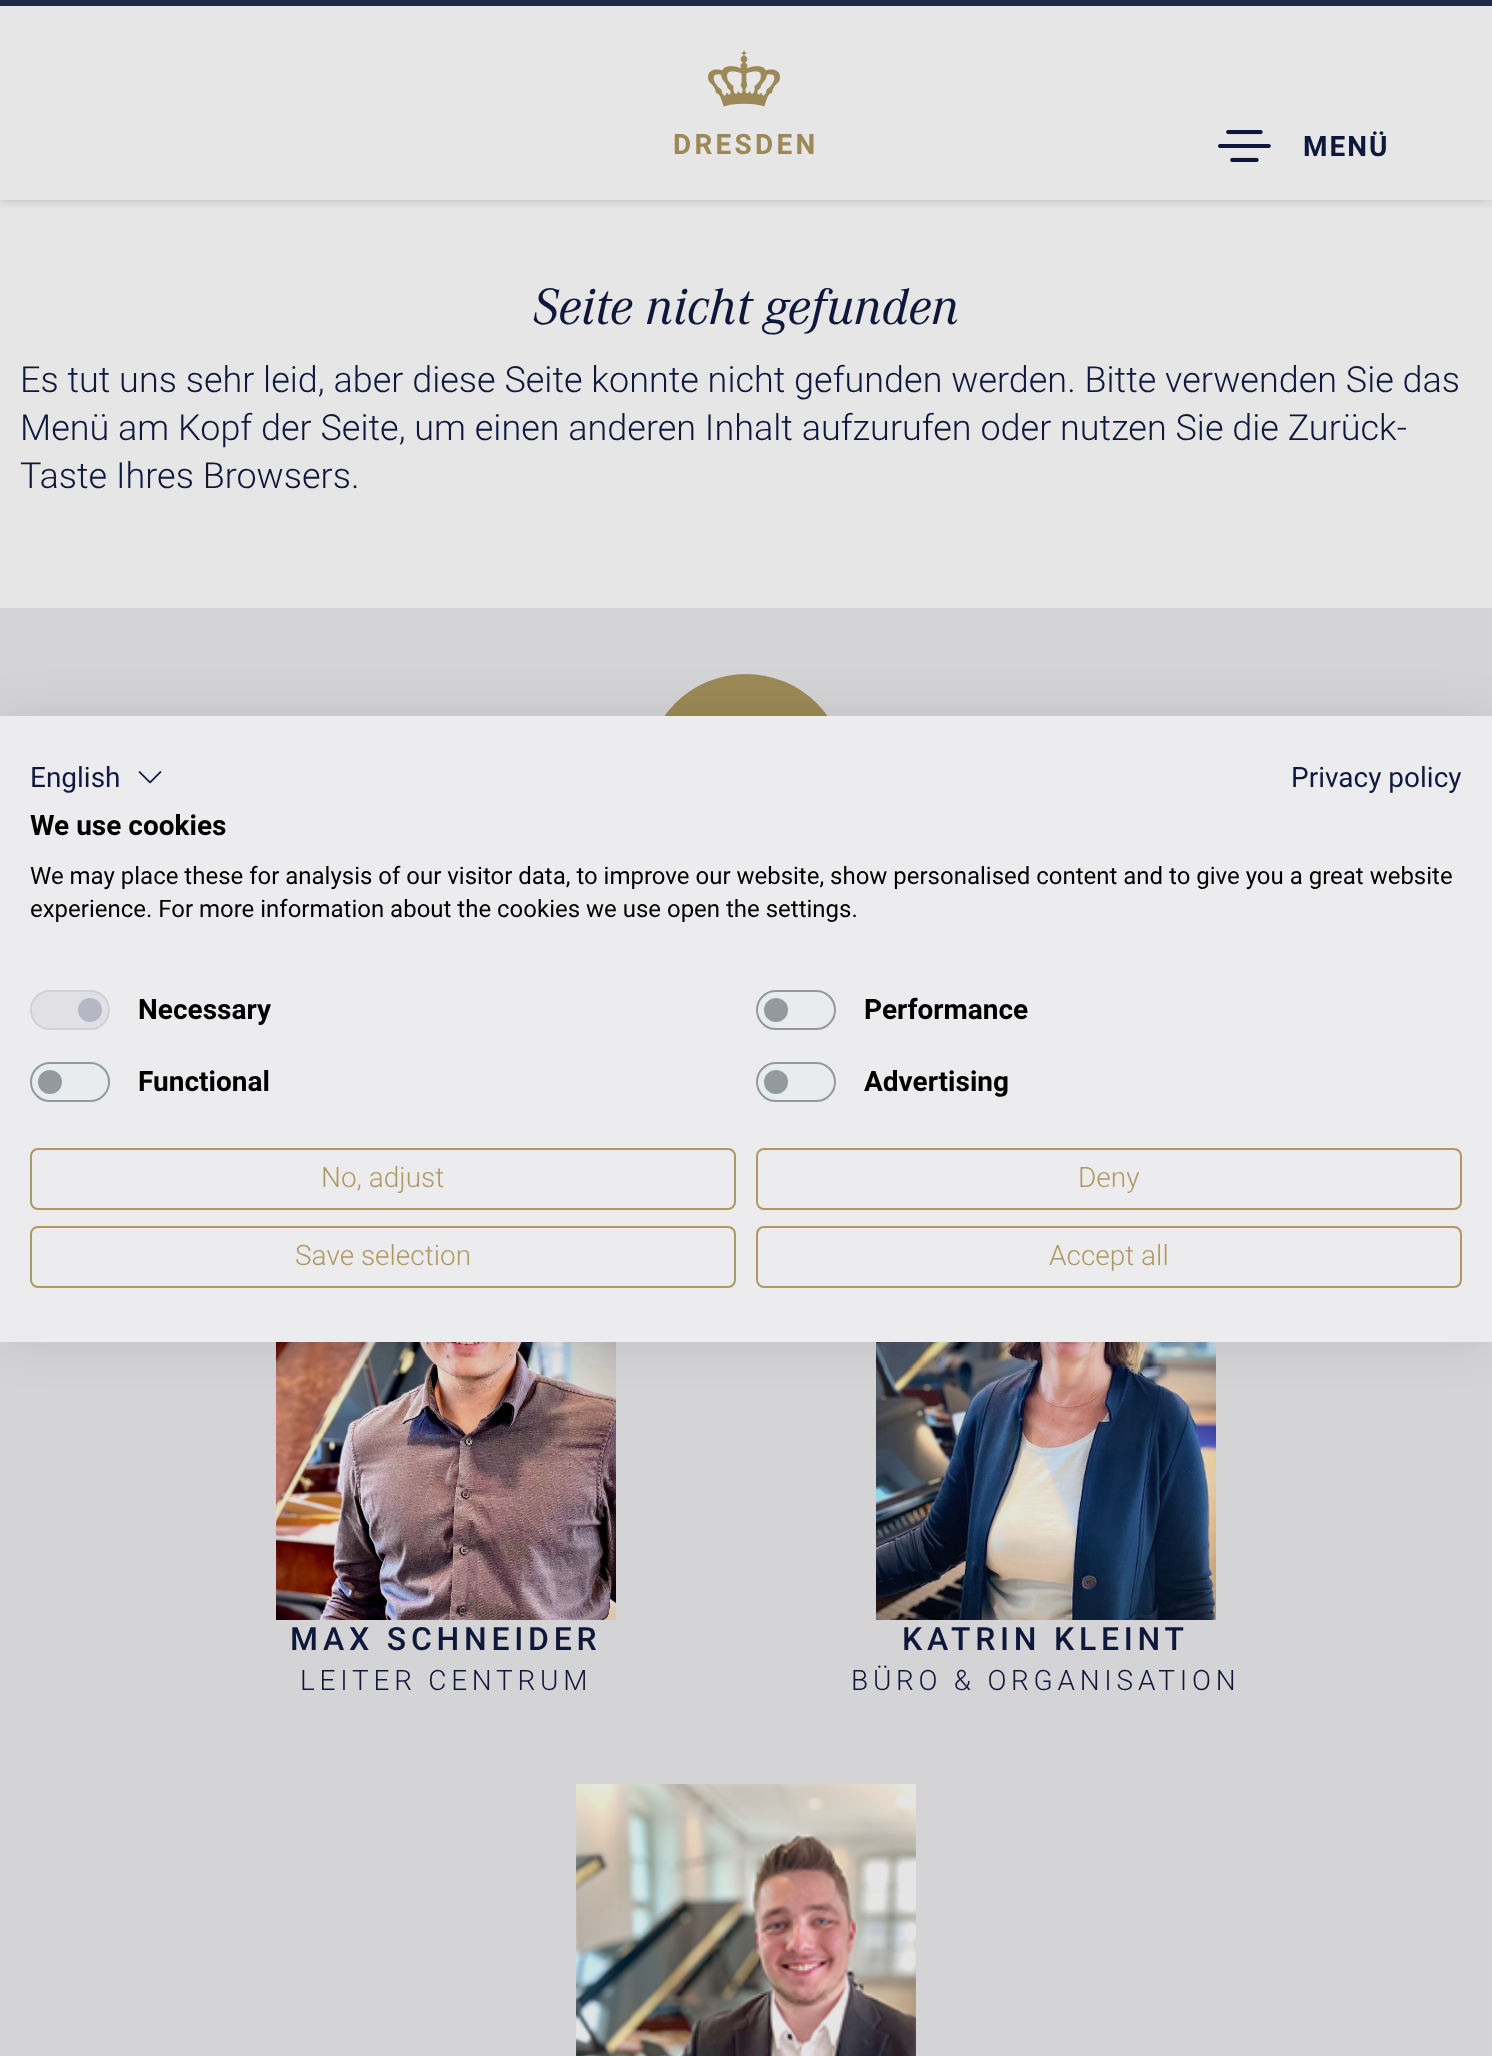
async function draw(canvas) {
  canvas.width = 1492;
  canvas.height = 2056;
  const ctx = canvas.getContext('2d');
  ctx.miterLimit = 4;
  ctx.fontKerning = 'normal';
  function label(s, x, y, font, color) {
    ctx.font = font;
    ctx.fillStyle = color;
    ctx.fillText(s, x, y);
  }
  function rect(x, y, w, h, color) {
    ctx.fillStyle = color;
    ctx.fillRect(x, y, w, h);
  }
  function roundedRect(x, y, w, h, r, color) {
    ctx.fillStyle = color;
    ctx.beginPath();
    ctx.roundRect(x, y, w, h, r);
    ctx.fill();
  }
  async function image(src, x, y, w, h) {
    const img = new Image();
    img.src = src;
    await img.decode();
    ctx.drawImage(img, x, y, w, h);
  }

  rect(0, 0, 1492, 2056, '#e6e6e6');
  ctx.save();
  ctx.beginPath();
  ctx.rect(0, 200, 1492, 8);
  ctx.clip();
  ctx.fillStyle = '#00000033';
  ctx.filter = 'blur(6px)';
  ctx.beginPath();
  ctx.rect(0, 0, 1492, 200);
  ctx.fill();
  ctx.filter = 'none';
  ctx.restore();
  rect(0, 0, 1492, 6, '#202848');
  await image('assets/img1.png', 708, 50, 72, 57);
  ctx.letterSpacing = '3.25px';
  label('DRESDEN', 673, 154, 'bold 28px Roboto', '#9c8957');
  await image('assets/img2.png', 1218, 130, 53, 32);
  ctx.letterSpacing = '2px';
  label('MENÜ', 1303, 156, 'bold 28px Roboto', '#0f173b');
  ctx.letterSpacing = '0px';
  label('Seite nicht gefunden', 533, 324, 'italic 50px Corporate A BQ', '#0f173b');
  label('Es tut uns sehr leid, aber diese Seite konnte nicht gefunden werden. Bitte verwenden Sie das', 20, 392, '300 36px Roboto', '#0f173b');
  label('Menü am Kopf der Seite, um einen anderen Inhalt aufzurufen oder nutzen Sie die Zurück-', 20, 440, '300 36px Roboto', '#0f173b');
  label('Taste Ihres Browsers.', 20, 488, '300 36px Roboto', '#0f173b');
  rect(0, 608, 1492, 1448, '#d4d4d6');
  ctx.fillStyle = '#9c8957';
  ctx.beginPath();
  ctx.arc(746, 774, 100, 0, 2 * Math.PI);
  ctx.fill();
  await image('assets/img3.png', 276, 1342, 340, 278);
  ctx.letterSpacing = '4.75px';
  label('MAX SCHNEIDER', 290, 1650, '500 32px Roboto', '#0f173b');
  label('LEITER CENTRUM', 300, 1690, '300 28px Roboto', '#0f173b');
  await image('assets/img4.png', 876, 1342, 340, 278);
  label('KATRIN KLEINT', 902, 1650, '500 32px Roboto', '#0f173b');
  label('BÜRO & ORGANISATION', 851, 1690, '300 28px Roboto', '#0f173b');
  await image('assets/img5.png', 576, 1784, 340, 272);
  ctx.fillStyle = '#0000001a';
  ctx.filter = 'blur(24px)';
  ctx.beginPath();
  ctx.rect(0, 716, 1492, 626);
  ctx.fill();
  ctx.filter = 'none';
  rect(0, 716, 1492, 626, '#ececee');
  ctx.letterSpacing = '0px';
  label('English', 30, 787, '28px Roboto', '#111941');
  await image('assets/img6.png', 138, 771, 24, 13);
  label('Privacy policy', 1291, 787, '28px Roboto', '#111941');
  label('We use cookies', 30, 835, 'bold 28px Roboto', '#000');
  label('We may place these for analysis of our visitor data, to improve our website, show personalised content and to give you a great website', 30, 884, '24px Roboto', '#000');
  label('experience. For more information about the cookies we use open the settings.', 30, 917, '24px Roboto', '#000');
  roundedRect(30, 990, 80, 40, 20, '#e1e1e5');
  ctx.fillStyle = '#b5b7c3';
  ctx.beginPath();
  ctx.arc(90, 1010, 12, 0, 2 * Math.PI);
  ctx.fill();
  ctx.beginPath();
  ctx.roundRect(31, 991, 78, 38, 19);
  ctx.strokeStyle = '#d1d2d8';
  ctx.lineWidth = 2;
  ctx.stroke();
  label('Necessary', 138, 1019, 'bold 28px Roboto', '#000');
  roundedRect(756, 990, 80, 40, 20, '#e9ecef');
  ctx.fillStyle = '#92999f';
  ctx.beginPath();
  ctx.arc(776, 1010, 12, 0, 2 * Math.PI);
  ctx.fill();
  ctx.beginPath();
  ctx.roundRect(757, 991, 78, 38, 19);
  ctx.strokeStyle = '#92999f';
  ctx.stroke();
  label('Performance', 864, 1019, 'bold 28px Roboto', '#000');
  roundedRect(30, 1062, 80, 40, 20, '#e9ecef');
  ctx.fillStyle = '#92999f';
  ctx.beginPath();
  ctx.arc(50, 1082, 12, 0, 2 * Math.PI);
  ctx.fill();
  ctx.beginPath();
  ctx.roundRect(31, 1063, 78, 38, 19);
  ctx.stroke();
  label('Functional', 138, 1091, 'bold 28px Roboto', '#000');
  roundedRect(756, 1062, 80, 40, 20, '#e9ecef');
  ctx.fillStyle = '#92999f';
  ctx.beginPath();
  ctx.arc(776, 1082, 12, 0, 2 * Math.PI);
  ctx.fill();
  ctx.beginPath();
  ctx.roundRect(757, 1063, 78, 38, 19);
  ctx.stroke();
  label('Advertising', 864, 1091, 'bold 28px Roboto', '#000');
  ctx.beginPath();
  ctx.roundRect(31, 1149, 704, 60, 7);
  ctx.strokeStyle = '#af9961';
  ctx.stroke();
  label('No, adjust', 321, 1187, '300 28px Roboto', '#af9961');
  ctx.beginPath();
  ctx.roundRect(757, 1149, 704, 60, 7);
  ctx.stroke();
  label('Deny', 1078, 1187, '300 28px Roboto', '#af9961');
  ctx.beginPath();
  ctx.roundRect(31, 1227, 704, 60, 7);
  ctx.stroke();
  label('Save selection', 295, 1265, '300 28px Roboto', '#af9961');
  ctx.beginPath();
  ctx.roundRect(757, 1227, 704, 60, 7);
  ctx.stroke();
  label('Accept all', 1049, 1265, '300 28px Roboto', '#af9961');
}

draw(document.querySelector('canvas'));
